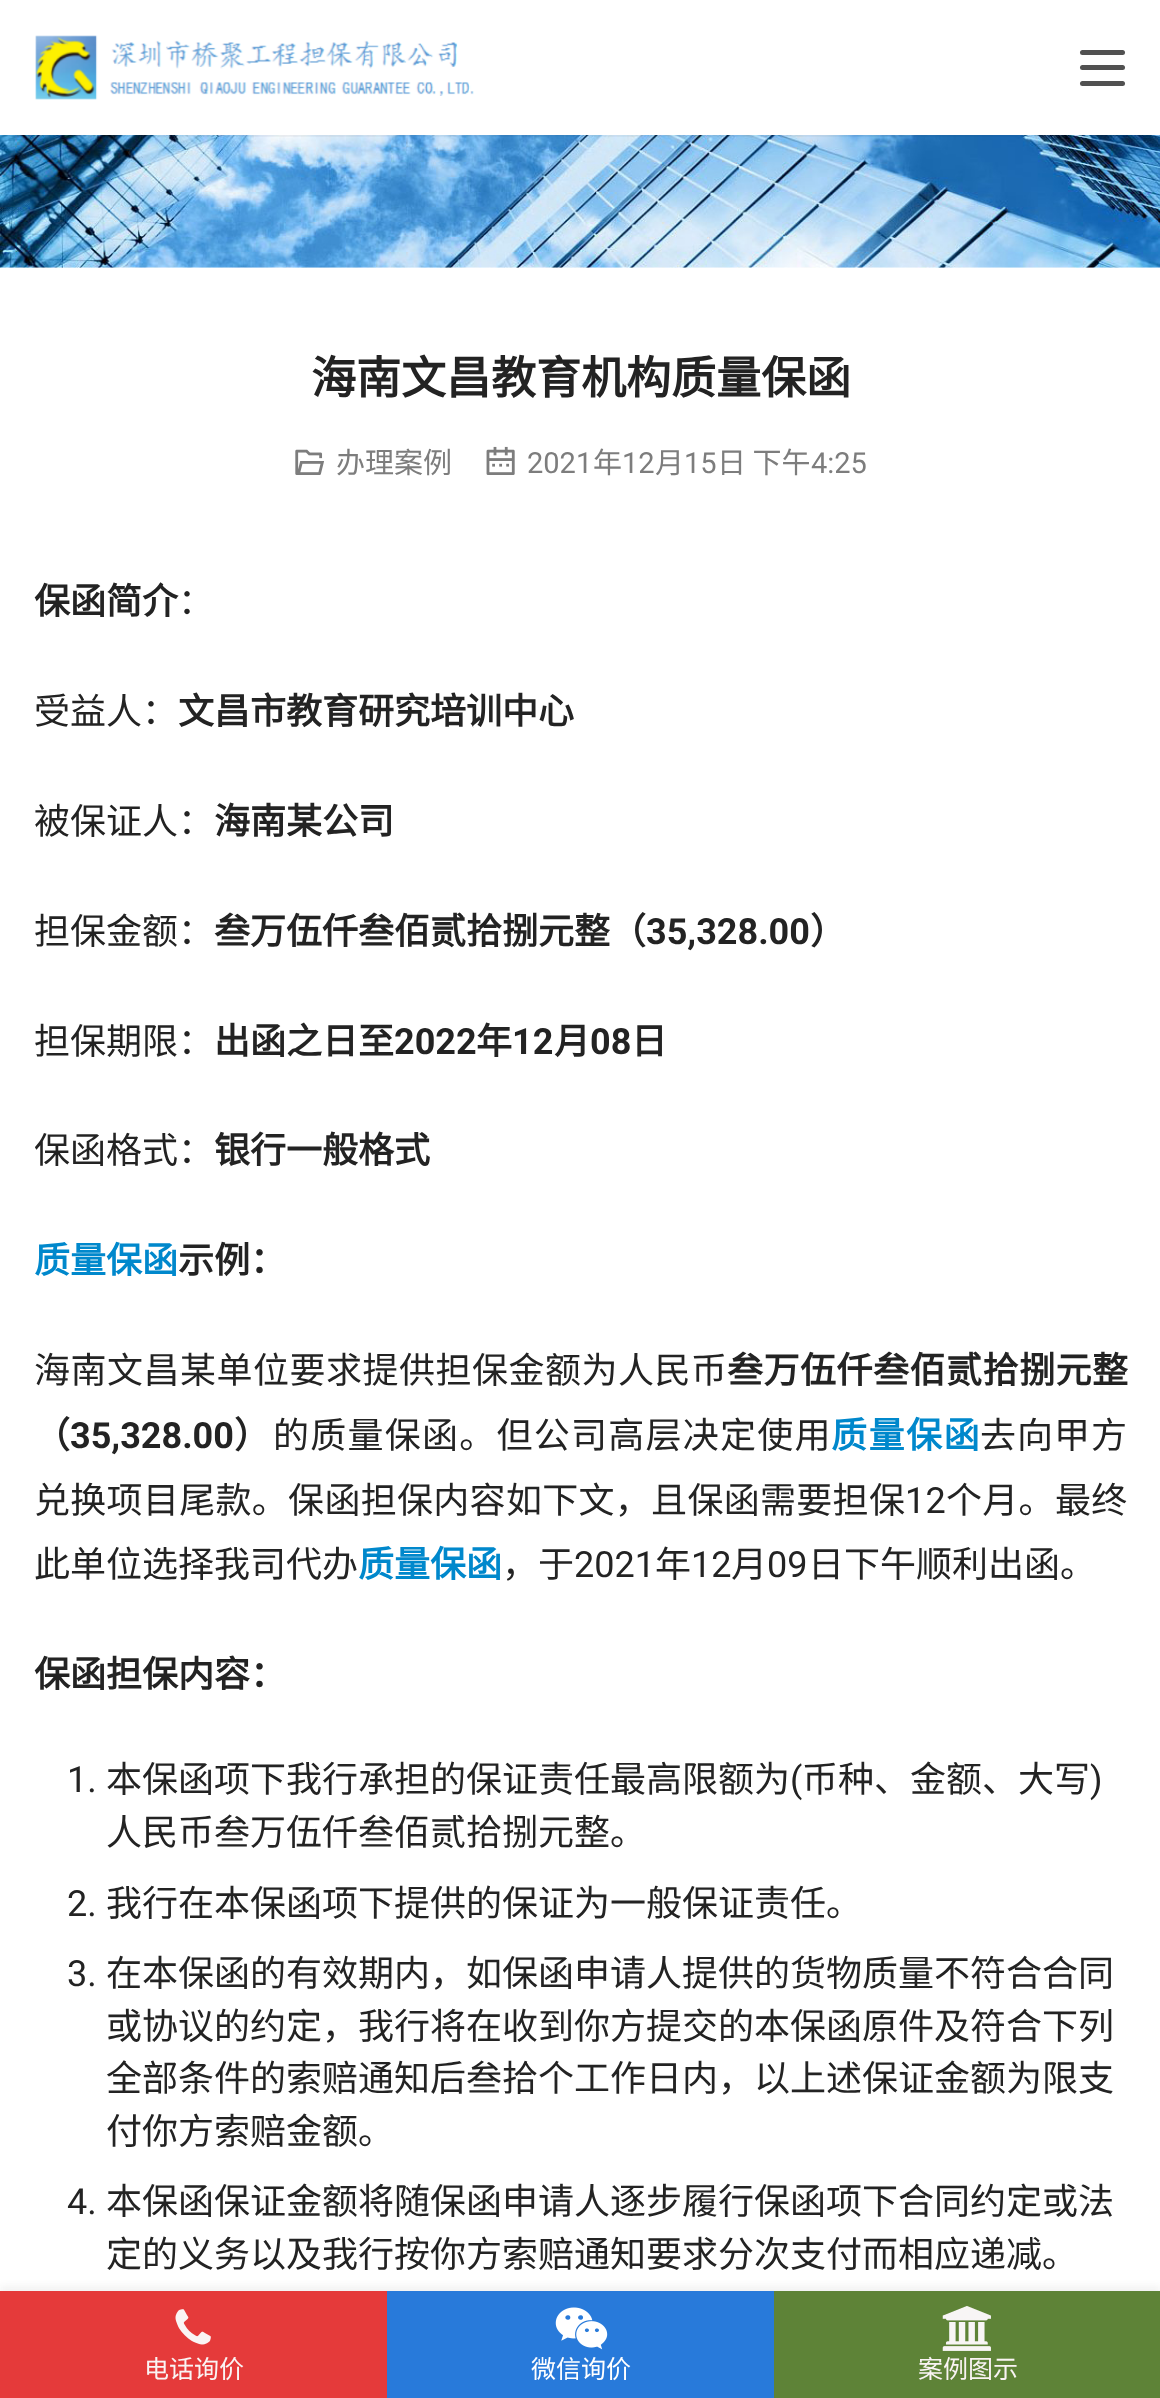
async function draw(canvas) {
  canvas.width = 1160;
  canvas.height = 2398;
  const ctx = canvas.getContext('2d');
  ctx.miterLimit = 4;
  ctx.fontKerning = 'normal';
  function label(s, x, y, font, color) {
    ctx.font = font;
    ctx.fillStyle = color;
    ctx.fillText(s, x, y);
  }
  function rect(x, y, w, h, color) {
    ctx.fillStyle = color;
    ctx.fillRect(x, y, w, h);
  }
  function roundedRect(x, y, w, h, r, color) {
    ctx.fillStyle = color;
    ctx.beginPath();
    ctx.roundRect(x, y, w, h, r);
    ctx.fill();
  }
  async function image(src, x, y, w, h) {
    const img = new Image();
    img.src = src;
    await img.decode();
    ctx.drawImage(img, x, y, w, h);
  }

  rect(0, 0, 1160, 2398, '#fff');
  await image('assets/img2.png', 0, 135, 1160, 133);
  ctx.save();
  ctx.beginPath();
  ctx.rect(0, 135, 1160, 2);
  ctx.clip();
  ctx.fillStyle = '#0000000d';
  ctx.filter = 'blur(1px)';
  ctx.beginPath();
  ctx.rect(0, 2, 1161, 135);
  ctx.fill();
  ctx.filter = 'none';
  ctx.restore();
  await image('assets/img1.png', 35, 35, 439, 65);
  roundedRect(1080, 50, 45, 5, 2.5, '#515151');
  roundedRect(1080, 65, 45, 5, 2.5, '#515151');
  roundedRect(1080, 81, 45, 5, 2.5, '#515151');
  label('海南文昌教育机构质量保函', 311, 394, 'bold 45px Noto Sans CJK SC', '#232323');
  await image('assets/img3.png', 295, 449, 29, 26);
  label('办理案例', 336, 473, '29px Noto Sans CJK SC', '#7d7d7d');
  await image('assets/img4.png', 486, 446, 29, 29);
  label('2021', 527, 473, '29px Roboto', '#7d7d7d');
  label('年', 593, 473, '29px Noto Sans CJK SC', '#7d7d7d');
  label('12', 622, 473, '29px Roboto', '#7d7d7d');
  label('月', 655, 473, '29px Noto Sans CJK SC', '#7d7d7d');
  label('15', 684, 473, '29px Roboto', '#7d7d7d');
  label('日 下午', 717, 473, '29px Noto Sans CJK SC', '#7d7d7d');
  label('4:25', 811, 473, '29px Roboto', '#7d7d7d');
  label('保函简介', 34, 614, 'bold 36px Noto Sans CJK SC', '#232323');
  label('：', 178, 614, '36px Noto Sans CJK SC', '#232323');
  label('受益人：', 34, 724, '36px Noto Sans CJK SC', '#232323');
  label('文昌市教育研究培训中心', 178, 724, 'bold 36px Noto Sans CJK SC', '#232323');
  label('被保证人：', 34, 834, '36px Noto Sans CJK SC', '#232323');
  label('海南某公司', 214, 834, 'bold 36px Noto Sans CJK SC', '#232323');
  label('担保金额：', 34, 944, '36px Noto Sans CJK SC', '#232323');
  label('叁万伍仟叁佰贰拾捌元整（', 214, 944, 'bold 36px Noto Sans CJK SC', '#232323');
  label('35,328.00', 646, 944, 'bold 36px Roboto', '#232323');
  label('）', 810, 944, 'bold 36px Noto Sans CJK SC', '#232323');
  label('担保期限：', 34, 1054, '36px Noto Sans CJK SC', '#232323');
  label('出函之日至', 214, 1054, 'bold 36px Noto Sans CJK SC', '#232323');
  label('2022', 394, 1054, 'bold 36px Roboto', '#232323');
  label('年', 476, 1054, 'bold 36px Noto Sans CJK SC', '#232323');
  label('12', 512, 1054, 'bold 36px Roboto', '#232323');
  label('月', 554, 1054, 'bold 36px Noto Sans CJK SC', '#232323');
  label('08', 590, 1054, 'bold 36px Roboto', '#232323');
  label('日', 631, 1054, 'bold 36px Noto Sans CJK SC', '#232323');
  label('保函格式：', 34, 1163, '36px Noto Sans CJK SC', '#232323');
  label('银行一般格式', 214, 1163, 'bold 36px Noto Sans CJK SC', '#232323');
  label('质量保函', 34, 1273, 'bold 36px Noto Sans CJK SC', '#08c');
  label('示例：', 178, 1273, 'bold 36px Noto Sans CJK SC', '#232323');
  ctx.letterSpacing = '0.5px';
  label('海南文昌某单位要求提供担保金额为人民币', 34, 1383, '36px Noto Sans CJK SC', '#232323');
  label('叁万伍仟叁佰贰拾捌元整', 727, 1383, 'bold 36px Noto Sans CJK SC', '#232323');
  ctx.letterSpacing = '0px';
  label('（', 34, 1448, 'bold 36px Noto Sans CJK SC', '#232323');
  label('35,328.00', 70, 1448, 'bold 36px Roboto', '#232323');
  label('）', 234, 1448, 'bold 36px Noto Sans CJK SC', '#232323');
  ctx.letterSpacing = '1.25px';
  label('的质量保函。但公司高层决定使用', 273, 1448, '36px Noto Sans CJK SC', '#232323');
  ctx.letterSpacing = '1.5px';
  label('质量保函', 831, 1448, 'bold 36px Noto Sans CJK SC', '#08c');
  ctx.letterSpacing = '1px';
  label('去向甲方', 980, 1448, '36px Noto Sans CJK SC', '#232323');
  ctx.letterSpacing = '0.3px';
  label('兑换项目尾款。保函担保内容如下文，且保函需要担保', 34, 1513, '36px Noto Sans CJK SC', '#232323');
  label('12', 905, 1513, '36px Roboto', '#232323');
  label('个月。最终', 946, 1513, '36px Noto Sans CJK SC', '#232323');
  ctx.letterSpacing = '0px';
  label('此单位选择我司代办', 34, 1577, '36px Noto Sans CJK SC', '#232323');
  label('质量保函', 358, 1577, 'bold 36px Noto Sans CJK SC', '#08c');
  label('，于', 502, 1577, '36px Noto Sans CJK SC', '#232323');
  label('2021', 574, 1577, '36px Roboto', '#232323');
  label('年', 655, 1577, '36px Noto Sans CJK SC', '#232323');
  label('12', 691, 1577, '36px Roboto', '#232323');
  label('月', 731, 1577, '36px Noto Sans CJK SC', '#232323');
  label('09', 767, 1577, '36px Roboto', '#232323');
  label('日下午顺利出函。', 808, 1577, '36px Noto Sans CJK SC', '#232323');
  label('保函担保内容：', 34, 1687, 'bold 36px Noto Sans CJK SC', '#232323');
  label('1.', 67, 1792, '36px Roboto', '#232323');
  label('本保函项下我行承担的保证责任最高限额为', 106, 1792, '36px Noto Sans CJK SC', '#232323');
  label('(', 790, 1792, '36px Roboto', '#232323');
  label('币种、金额、大写', 802, 1792, '36px Noto Sans CJK SC', '#232323');
  label(')', 1090, 1792, '36px Roboto', '#232323');
  label('人民币叁万伍仟叁佰贰拾捌元整。', 106, 1845, '36px Noto Sans CJK SC', '#232323');
  label('2.', 67, 1916, '36px Roboto', '#232323');
  label('我行在本保函项下提供的保证为一般保证责任。', 106, 1916, '36px Noto Sans CJK SC', '#232323');
  label('3.', 67, 1986, '36px Roboto', '#232323');
  label('在本保函的有效期内，如保函申请人提供的货物质量不符合合同', 106, 1986, '36px Noto Sans CJK SC', '#232323');
  label('或协议的约定，我行将在收到你方提交的本保函原件及符合下列', 106, 2039, '36px Noto Sans CJK SC', '#232323');
  label('全部条件的索赔通知后叁拾个工作日内，以上述保证金额为限支', 106, 2091, '36px Noto Sans CJK SC', '#232323');
  label('付你方索赔金额。', 106, 2144, '36px Noto Sans CJK SC', '#232323');
  label('4.', 67, 2214, '36px Roboto', '#232323');
  label('本保函保证金额将随保函申请人逐步履行保函项下合同约定或法', 106, 2214, '36px Noto Sans CJK SC', '#232323');
  label('定的义务以及我行按你方索赔通知要求分次支付而相应递减。', 106, 2267, '36px Noto Sans CJK SC', '#232323');
  ctx.fillStyle = '#2626260f';
  ctx.filter = 'blur(3.5px)';
  ctx.beginPath();
  ctx.rect(0, 2286, 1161, 108);
  ctx.fill();
  ctx.filter = 'none';
  rect(0, 2291, 387, 107, '#e53a3a');
  await image('assets/img5.png', 175, 2309, 36, 36);
  label('电话询价', 144, 2378, '25px Noto Sans CJK SC', '#faf4f4');
  rect(387, 2291, 387, 107, '#287ada');
  await image('assets/img6.png', 555, 2307, 53, 43);
  label('微信询价', 531, 2378, '25px Noto Sans CJK SC', '#fff');
  rect(774, 2291, 386, 107, '#5e8337');
  await image('assets/img7.png', 942, 2306, 49, 45);
  label('案例图示', 918, 2378, '25px Noto Sans CJK SC', '#faf4f4');
}

draw(document.querySelector('canvas'));
